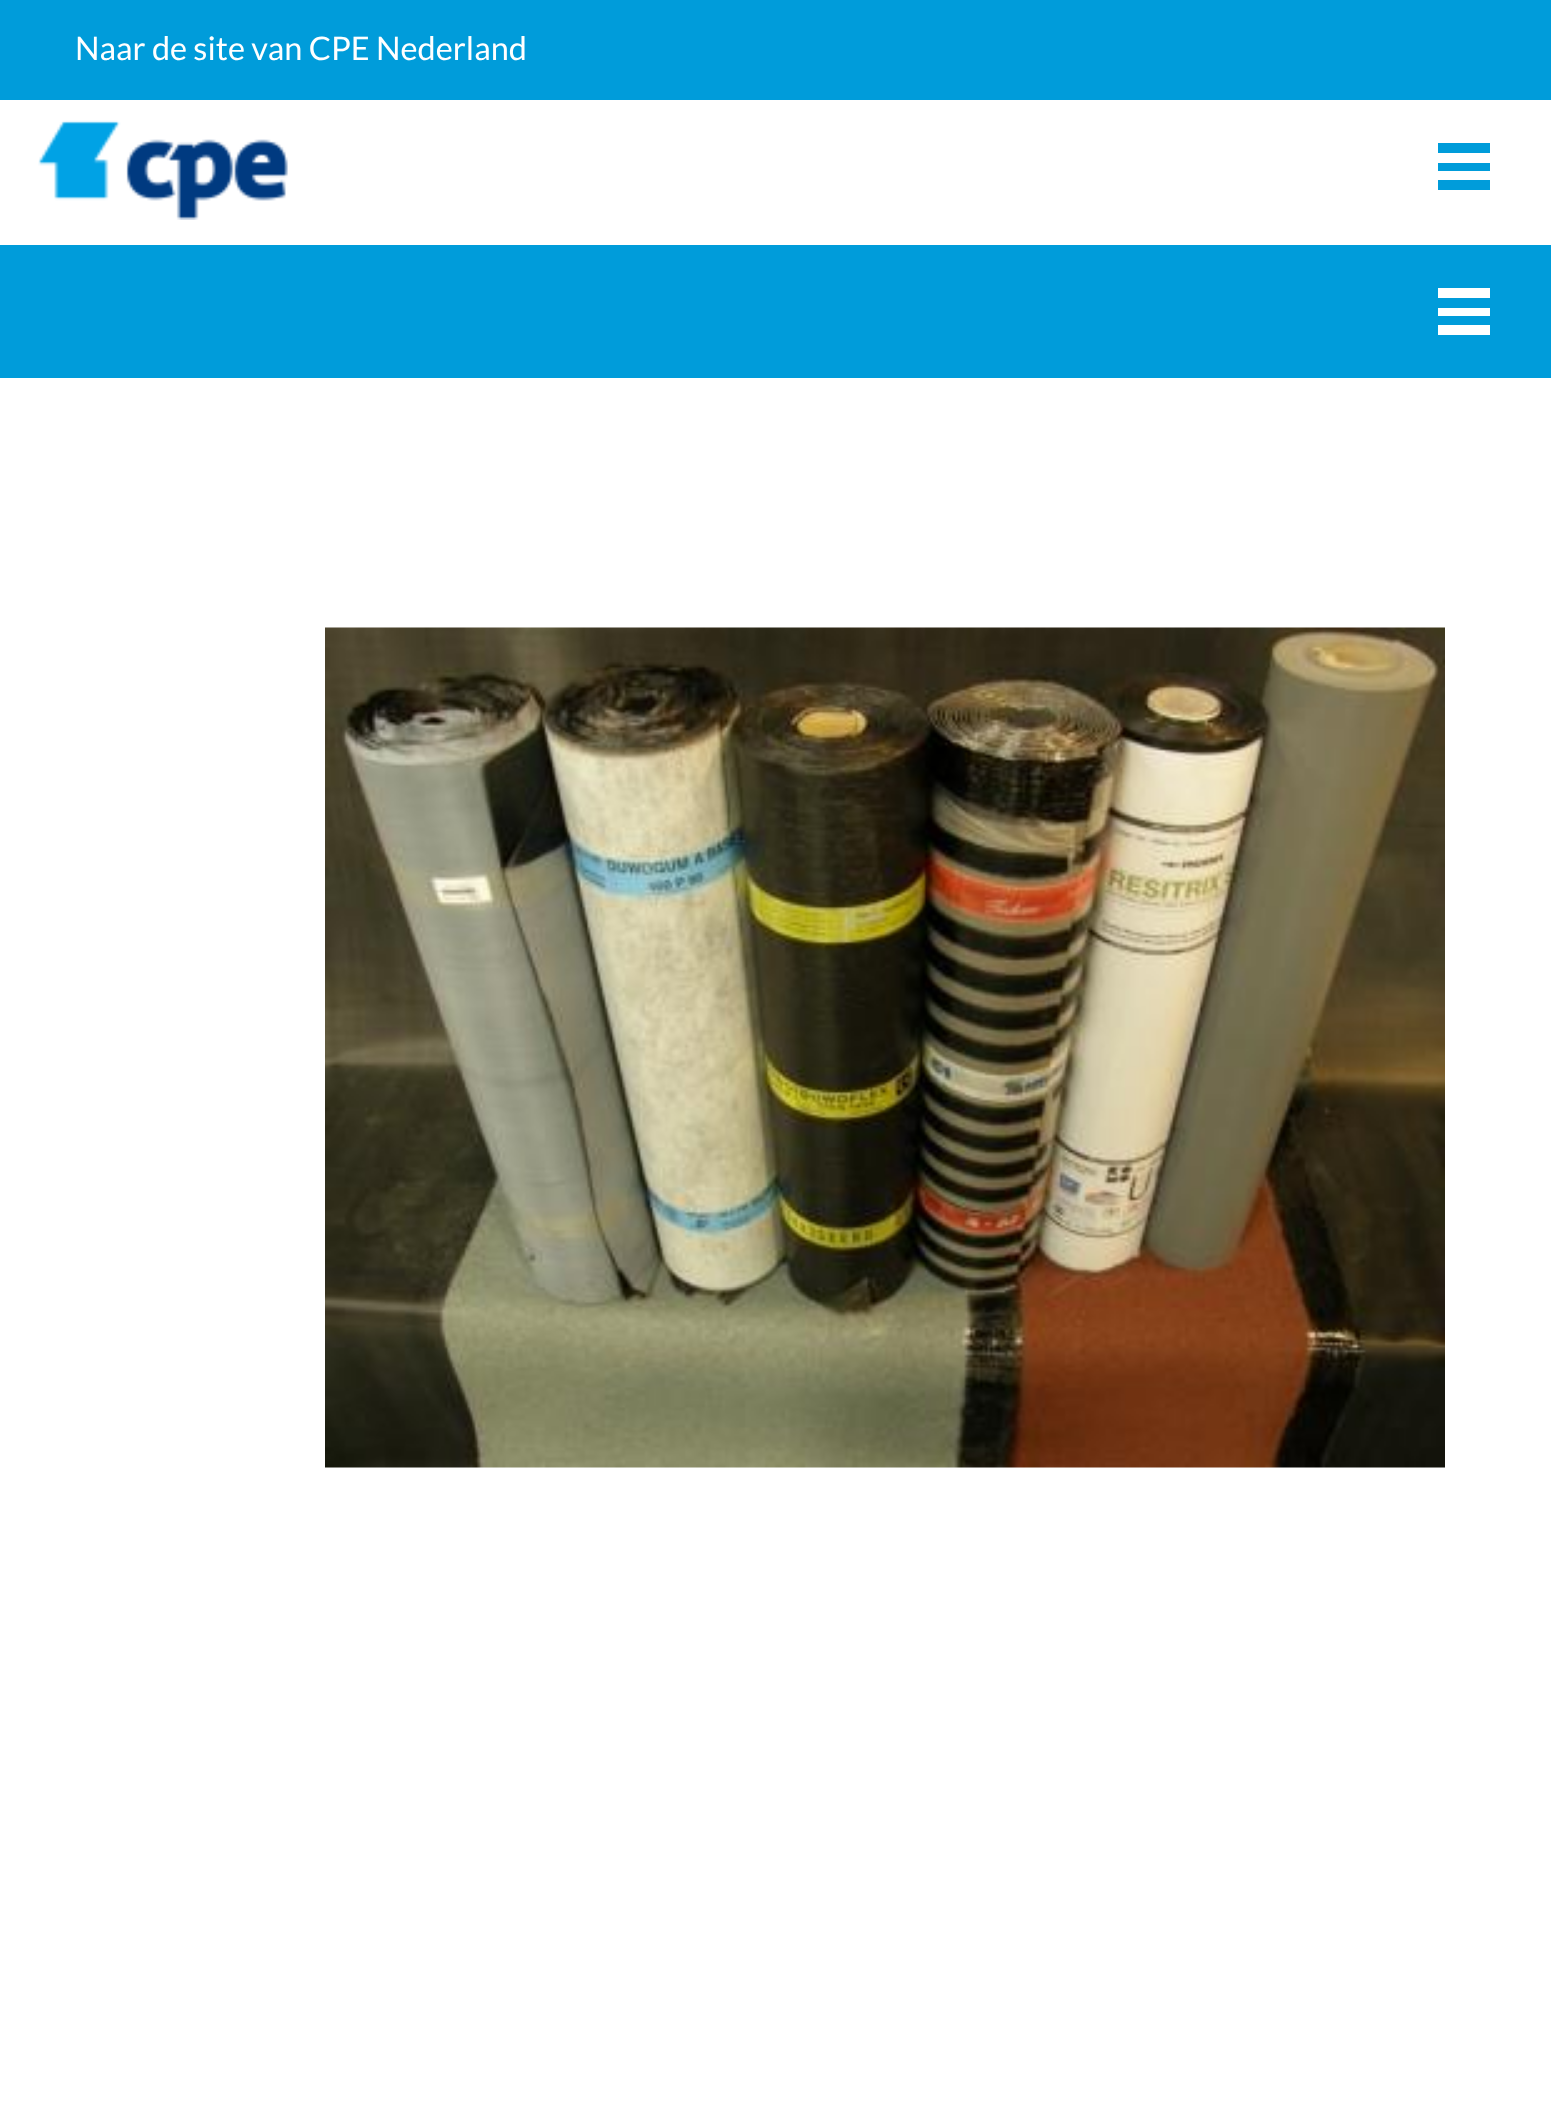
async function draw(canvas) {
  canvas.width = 1551;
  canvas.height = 2111;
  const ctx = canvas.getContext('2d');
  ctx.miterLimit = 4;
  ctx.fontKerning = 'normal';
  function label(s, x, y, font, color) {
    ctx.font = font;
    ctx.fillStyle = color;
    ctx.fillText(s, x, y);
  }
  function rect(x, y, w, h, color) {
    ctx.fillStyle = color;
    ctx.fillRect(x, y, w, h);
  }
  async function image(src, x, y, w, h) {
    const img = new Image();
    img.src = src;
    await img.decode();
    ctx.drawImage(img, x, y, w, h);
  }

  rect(0, 0, 1551, 2111, '#fff');
  rect(0, 0, 1551, 100, '#009cda');
  label('Naar de site van CPE Nederland', 75, 60, '32.5px Lato', '#fff');
  await image('assets/img1.png', 38, 120, 250, 100);
  rect(1438, 143, 52, 10, '#009cda');
  rect(1438, 163, 52, 8, '#009cda');
  rect(1438, 180, 52, 10, '#009cda');
  rect(0, 245, 1551, 133, '#009cda');
  rect(1438, 288, 52, 10, '#fff');
  rect(1438, 308, 52, 8, '#fff');
  rect(1438, 325, 52, 10, '#fff');
  await image('assets/img2.png', 325, 627, 1120, 841);
}

draw(document.querySelector('canvas'));
